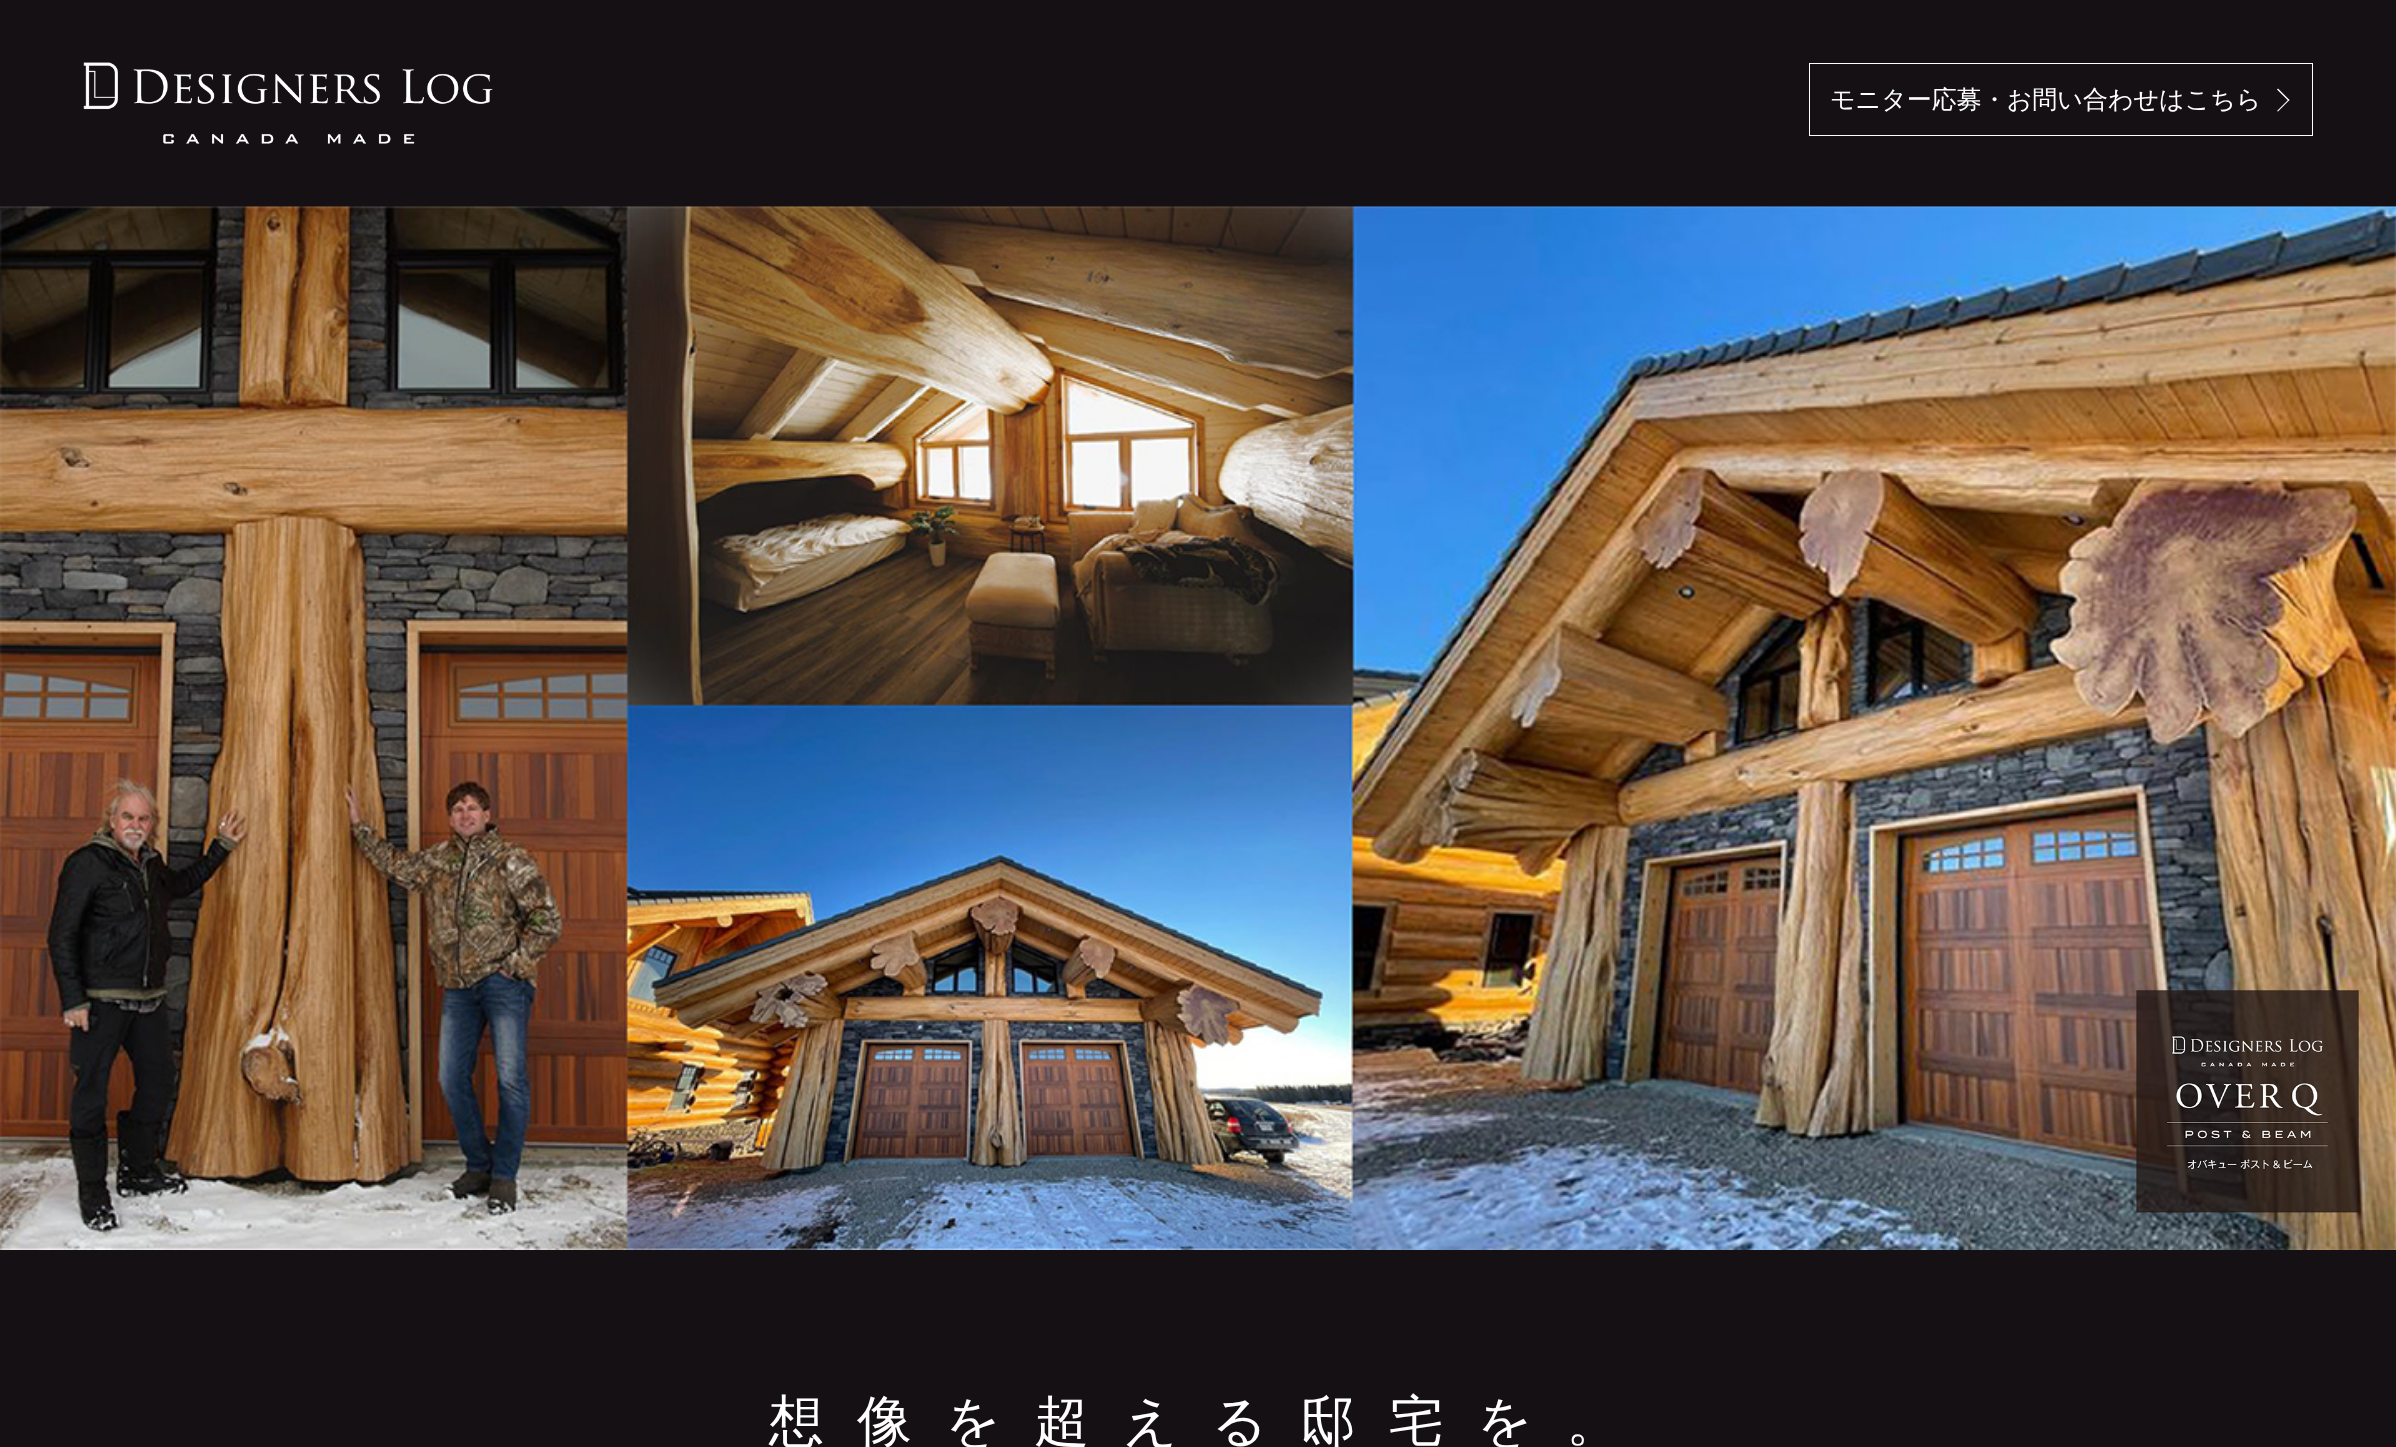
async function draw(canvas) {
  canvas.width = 2396;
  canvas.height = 1447;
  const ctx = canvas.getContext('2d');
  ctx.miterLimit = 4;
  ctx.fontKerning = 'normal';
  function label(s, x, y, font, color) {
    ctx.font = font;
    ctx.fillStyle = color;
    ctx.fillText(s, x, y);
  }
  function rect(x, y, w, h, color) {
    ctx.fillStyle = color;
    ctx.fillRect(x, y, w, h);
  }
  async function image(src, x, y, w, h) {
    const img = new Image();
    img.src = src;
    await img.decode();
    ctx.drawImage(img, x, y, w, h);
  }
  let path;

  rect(0, 0, 2396, 1447, '#141013');
  await image('assets/img1.png', 83, 62, 410, 82);
  ctx.strokeStyle = '#fff';
  ctx.strokeRect(1809.5, 63.5, 503, 72);
  label('モニター応募・お問い合わせはこちら', 1830, 108, '500 25px WenQuanYi Zen Hei', '#fff');
  path = new Path2D('M2278 88.5L2289.5 100L2288.5 101L2277 89.5Z');
  ctx.fill(path);
  path = new Path2D('M2288.5 99.5L2289.5 100L2278 111.5L2277 111Z');
  ctx.fill(path);
  await image('assets/img2.png', 0, 206, 2396, 1044);
  await image('assets/img3.png', 2136, 990, 223, 223);
  ctx.letterSpacing = '33px';
  label('想像を超える邸宅を。', 769, 1440, '500 55px WenQuanYi Zen Hei', '#fff');
}

draw(document.querySelector('canvas'));
